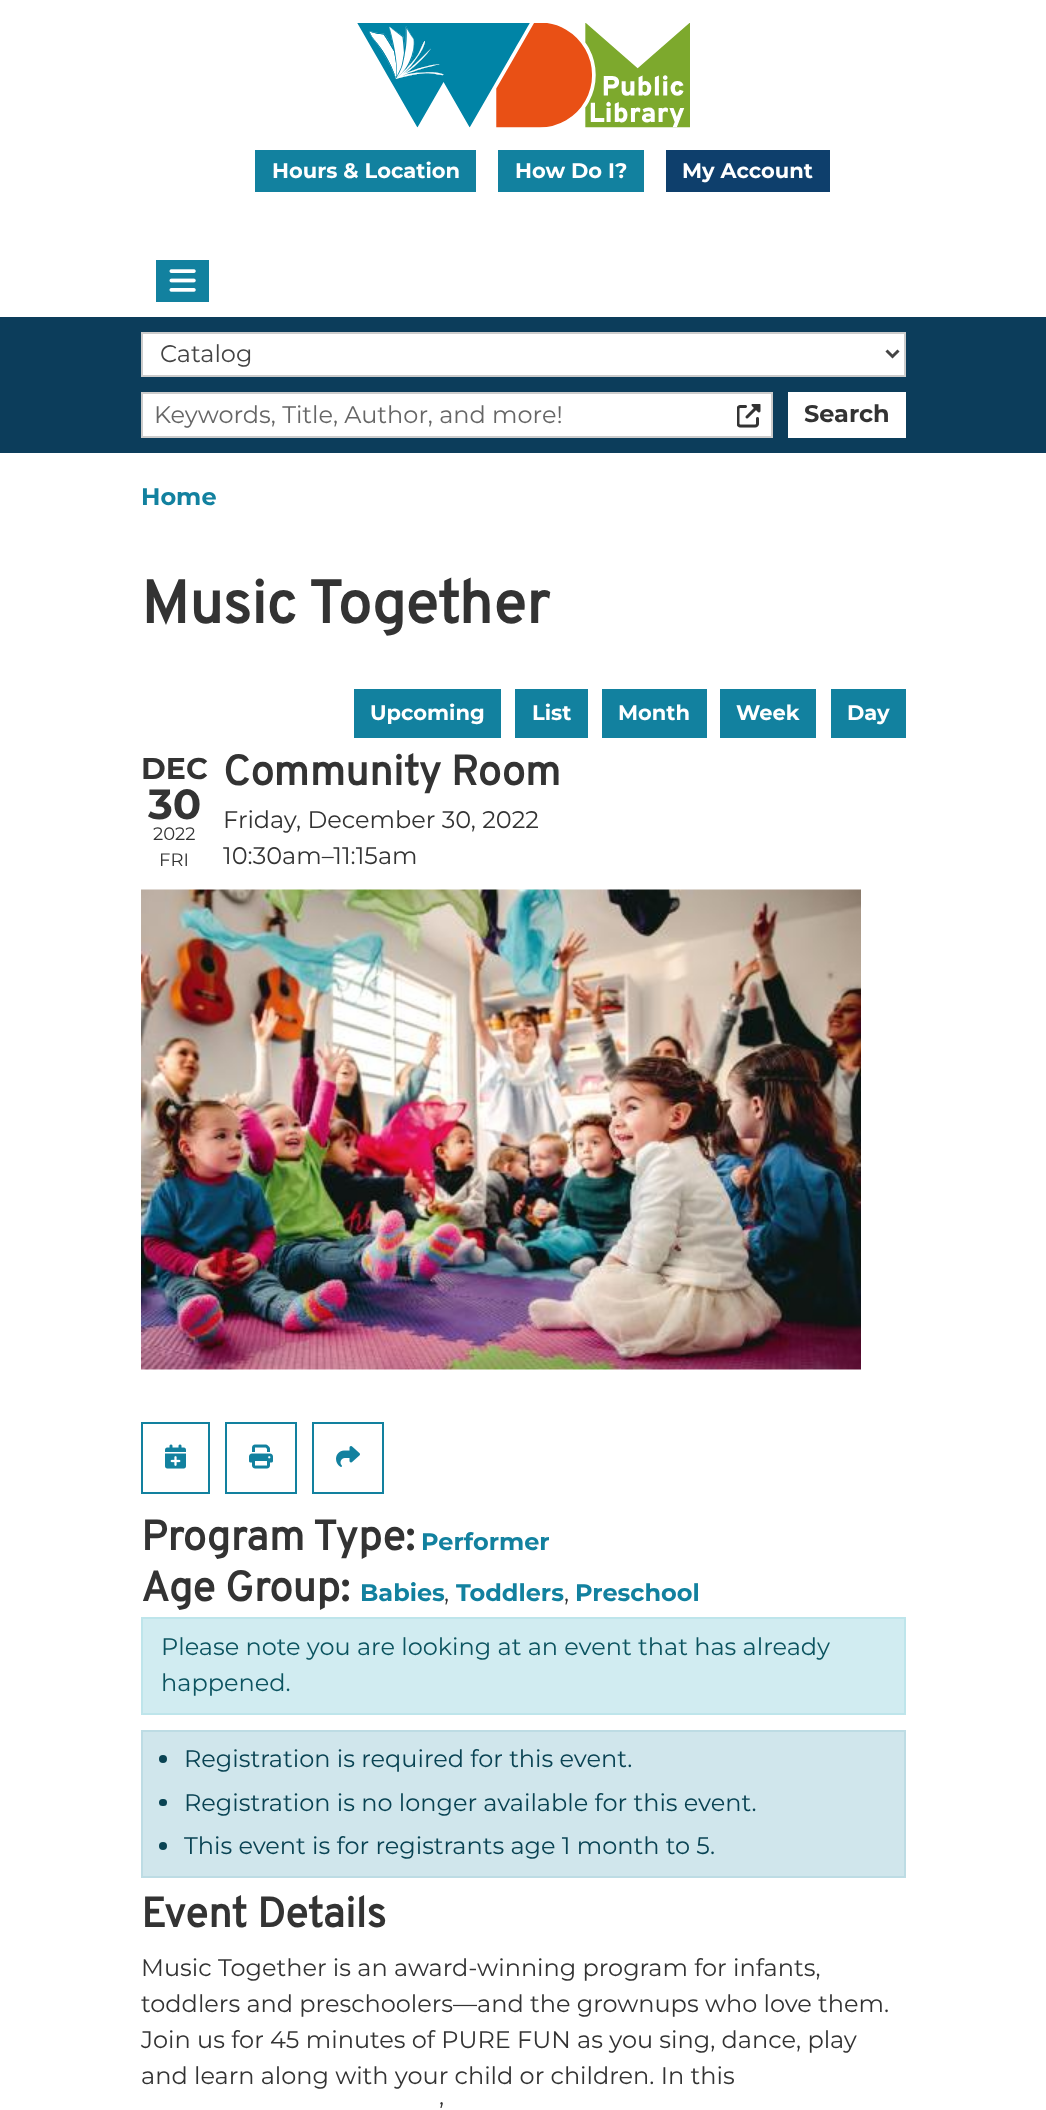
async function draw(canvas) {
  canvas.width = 1046;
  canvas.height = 2110;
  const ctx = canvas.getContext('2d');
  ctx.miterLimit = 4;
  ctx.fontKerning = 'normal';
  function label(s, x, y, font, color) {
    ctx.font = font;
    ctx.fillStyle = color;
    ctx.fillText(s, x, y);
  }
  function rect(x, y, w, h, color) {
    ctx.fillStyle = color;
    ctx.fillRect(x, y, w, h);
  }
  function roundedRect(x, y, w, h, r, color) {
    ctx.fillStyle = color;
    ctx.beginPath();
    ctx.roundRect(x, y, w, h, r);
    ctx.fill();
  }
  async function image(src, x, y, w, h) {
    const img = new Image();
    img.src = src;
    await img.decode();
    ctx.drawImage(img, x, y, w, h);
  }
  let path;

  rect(0, 0, 1046, 2110, '#fff');
  await image('assets/img1.png', 357, 23, 333, 105);
  rect(255, 150, 221, 42, '#12819f');
  label('Hours & Location', 272, 178, 'bold 21px Montserrat', '#fff');
  rect(498, 150, 146, 42, '#12819f');
  label('How Do I?', 515, 178, 'bold 21px Montserrat', '#fff');
  rect(666, 150, 164, 42, '#0e3f6c');
  label('My Account', 682, 178, 'bold 21px Montserrat', '#fff');
  rect(156, 260, 53, 42, '#12819f');
  await image('assets/img2.png', 169, 269, 27, 23);
  rect(0, 317, 1046, 136, '#0c3d5b');
  ctx.fillStyle = '#fff';
  ctx.beginPath();
  ctx.rect(142, 333, 763, 43);
  ctx.fill();
  ctx.strokeStyle = '#ccc';
  ctx.lineWidth = 2;
  ctx.stroke();
  path = new Path2D('M886.5 350.5L892.5 356.5L898.5 350.5');
  ctx.strokeStyle = '#444';
  ctx.lineWidth = 3;
  ctx.stroke(path);
  label('Catalog', 160, 362, '24px Montserrat', '#444');
  ctx.fillStyle = '#fff';
  ctx.beginPath();
  ctx.rect(142, 393, 630, 44);
  ctx.fill();
  ctx.strokeStyle = '#ccc';
  ctx.lineWidth = 2;
  ctx.stroke();
  label('Keywords, Title, Author, and more!', 154, 423, '24px Montserrat', '#666');
  await image('assets/img3.png', 737, 404, 24, 24);
  rect(788, 392, 118, 46, '#fff');
  label('Search', 804, 422, 'bold 24px Montserrat', '#333');
  label('Home', 141, 505, 'bold 24px Montserrat', '#12819f');
  label('Music Together', 141, 623, 'bold 60px Overpass', '#333');
  rect(354, 689, 147, 49, '#12819f');
  label('Upcoming', 370, 720, 'bold 21px Montserrat', '#fff');
  rect(515, 689, 73, 49, '#12819f');
  label('List', 532, 720, 'bold 21px Montserrat', '#fff');
  rect(602, 689, 105, 49, '#12819f');
  label('Month', 618, 720, 'bold 21px Montserrat', '#fff');
  rect(720, 689, 96, 49, '#12819f');
  label('Week', 736, 720, 'bold 21px Montserrat', '#fff');
  rect(831, 689, 75, 49, '#12819f');
  label('Day', 847, 720, 'bold 21px Montserrat', '#fff');
  label('DEC', 141, 779, 'bold 30px Montserrat', '#333');
  label('30', 148, 819, 'bold 42px Montserrat', '#333');
  label('2022', 153, 840, '18px Montserrat', '#333');
  label('FRI', 159, 866, '18px Montserrat', '#333');
  label('Community Room', 223, 785, 'bold 42px Overpass', '#333');
  label('Friday, December 30, 2022', 223, 828, '24px Montserrat', '#333');
  label('10:30am–11:15am', 223, 864, '24px Montserrat', '#333');
  await image('assets/img4.png', 141, 889, 720, 481);
  ctx.strokeStyle = '#12819f';
  ctx.strokeRect(142, 1423, 67, 70);
  await image('assets/img5.png', 165, 1444, 21, 25);
  ctx.strokeRect(226, 1423, 70, 70);
  await image('assets/img6.png', 249, 1444, 24, 25);
  ctx.strokeRect(313, 1423, 70, 70);
  await image('assets/img7.png', 336, 1446, 24, 21);
  label('Program Type:', 141, 1550, 'bold 42px Overpass', '#333');
  label('Performer', 421, 1550, 'bold 24px Montserrat', '#12819f');
  label('Age Group:', 141, 1601, 'bold 42px Overpass', '#333');
  label('Babies', 360, 1601, 'bold 24px Montserrat', '#12819f');
  label(',', 444, 1601, '24px Montserrat', '#333');
  label('Toddlers', 456, 1601, 'bold 24px Montserrat', '#12819f');
  label(',', 564, 1601, '24px Montserrat', '#333');
  label('Preschool', 575, 1601, 'bold 24px Montserrat', '#12819f');
  ctx.fillStyle = '#d1ecf1';
  ctx.beginPath();
  ctx.rect(142, 1618, 763, 96);
  ctx.fill();
  ctx.strokeStyle = '#bee5eb';
  ctx.stroke();
  label('Please note you are looking at an event that has already', 161, 1655, '24px Montserrat', '#0c5460');
  label('happened.', 161, 1691, '24px Montserrat', '#0c5460');
  ctx.fillStyle = '#d0e6ec';
  ctx.beginPath();
  ctx.rect(142, 1731, 763, 146);
  ctx.fill();
  ctx.strokeStyle = '#bddce4';
  ctx.stroke();
  ctx.fillStyle = '#094353';
  ctx.beginPath();
  ctx.arc(163, 1759, 4, 0, 2 * Math.PI);
  ctx.fill();
  label('Registration is required for this event.', 184, 1767, '24px Montserrat', '#094353');
  roundedRect(159, 1799, 8, 7, 3.5, '#094353');
  label('Registration is no longer available for this event.', 184, 1811, '24px Montserrat', '#094353');
  ctx.beginPath();
  ctx.arc(163, 1846, 4, 0, 2 * Math.PI);
  ctx.fill();
  label('This event is for registrants age 1 month to 5.', 184, 1854, '24px Montserrat', '#094353');
  label('Event Details', 141, 1927, 'bold 42px Overpass', '#333');
  label('Music Together is an award-winning program for infants,', 141, 1976, '24px Montserrat', '#333');
  label('toddlers and preschoolers—and the grownups who love them.', 141, 2012, '24px Montserrat', '#333');
  label('Join us for 45 minutes of PURE FUN as you sing, dance, play', 141, 2048, '24px Montserrat', '#333');
  label('and learn along with your child or children. In this', 141, 2084, '24px Montserrat', '#333');
  label('’', 439, 2120, '24px Montserrat', '#333');
}

draw(document.querySelector('canvas'));
